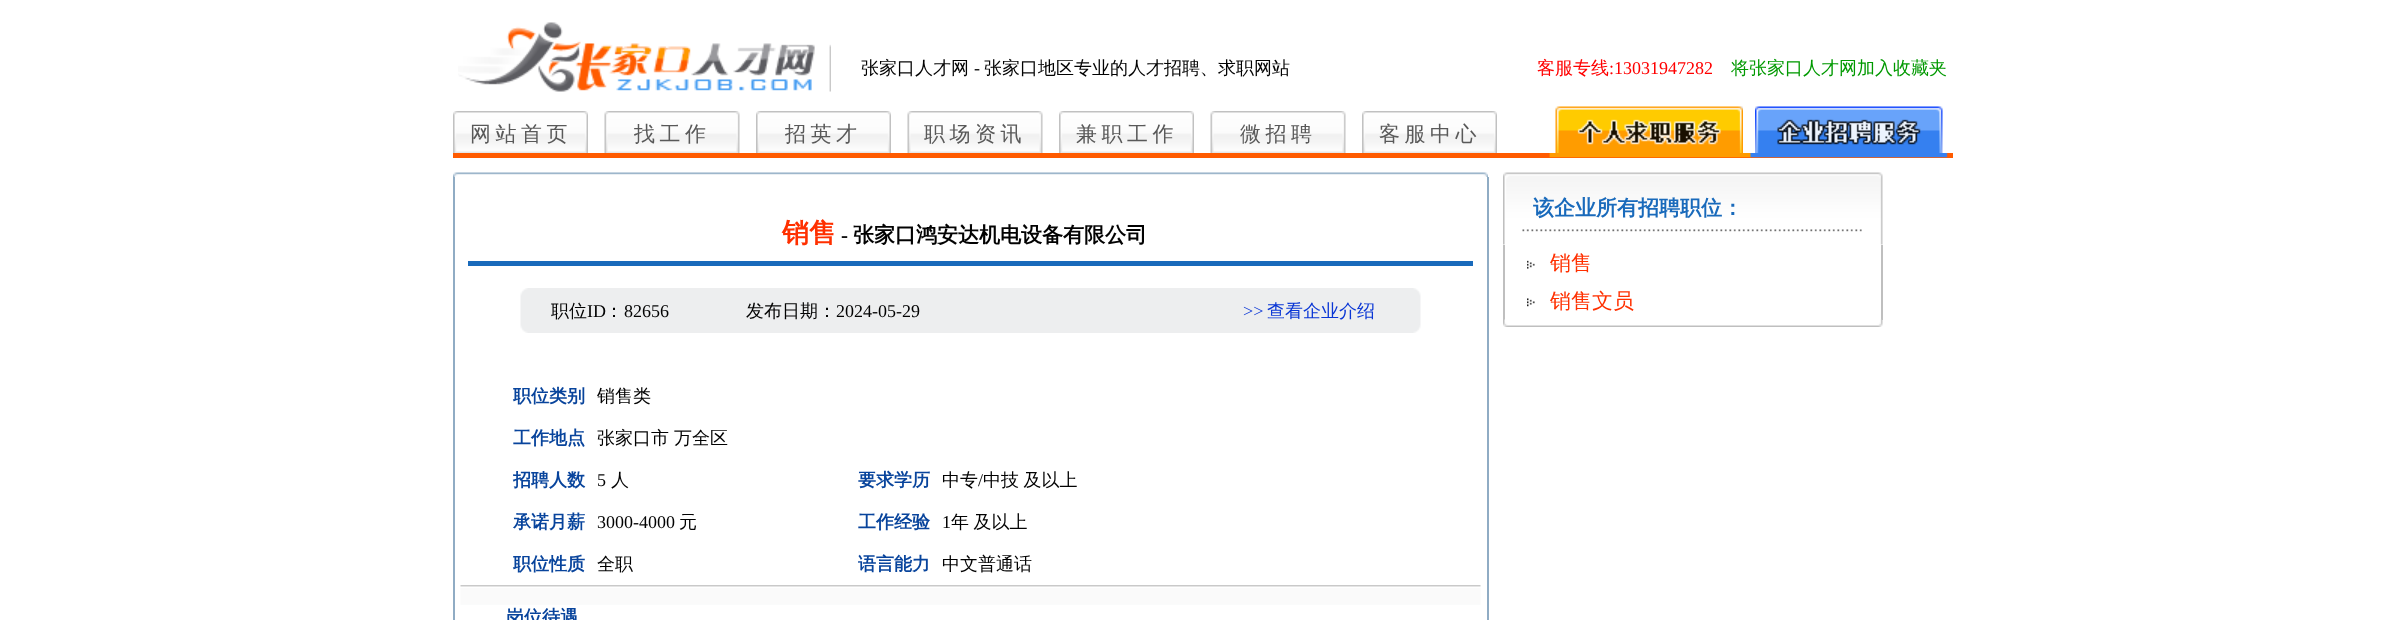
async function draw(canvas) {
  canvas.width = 2405;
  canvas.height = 620;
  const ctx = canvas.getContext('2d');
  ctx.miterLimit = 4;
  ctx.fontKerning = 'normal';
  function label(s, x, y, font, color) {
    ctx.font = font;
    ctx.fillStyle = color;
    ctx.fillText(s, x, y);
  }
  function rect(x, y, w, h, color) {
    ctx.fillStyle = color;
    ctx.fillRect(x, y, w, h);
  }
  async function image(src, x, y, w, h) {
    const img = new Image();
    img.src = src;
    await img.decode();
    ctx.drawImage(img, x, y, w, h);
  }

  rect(0, 0, 2405, 620, '#fff');
  await image('assets/img1.png', 458, 22, 373, 70);
  label('张家口人才网', 861, 74, '500 18px WenQuanYi Zen Hei', '#020202');
  label('-', 974, 74, '18px Liberation Serif', '#020202');
  label('张家口地区专业的人才招聘、求职网站', 984, 74, '500 18px WenQuanYi Zen Hei', '#020202');
  label('客服专线', 1537, 74, '500 18px WenQuanYi Zen Hei', '#f00');
  label(':13031947282', 1609, 74, '18px Liberation Serif', '#f00');
  label('将张家口人才网加入收藏夹', 1731, 74, '500 18px WenQuanYi Zen Hei', '#090');
  await image('assets/img2.png', 453, 111, 135, 42);
  ctx.letterSpacing = '4.5px';
  label('网站首页', 470, 141, '500 21px WenQuanYi Zen Hei', '#595959');
  await image('assets/img3.png', 604, 111, 136, 42);
  label('找工作', 634, 141, '500 21px WenQuanYi Zen Hei', '#595959');
  await image('assets/img2.png', 756, 111, 135, 42);
  label('招英才', 785, 141, '500 21px WenQuanYi Zen Hei', '#595959');
  await image('assets/img4.png', 907, 111, 136, 42);
  label('职场资讯', 924, 141, '500 21px WenQuanYi Zen Hei', '#595959');
  await image('assets/img2.png', 1059, 111, 135, 42);
  label('兼职工作', 1076, 141, '500 21px WenQuanYi Zen Hei', '#595959');
  await image('assets/img4.png', 1210, 111, 136, 42);
  label('微招聘', 1240, 141, '500 21px WenQuanYi Zen Hei', '#595959');
  await image('assets/img2.png', 1362, 111, 135, 42);
  label('客服中心', 1379, 141, '500 21px WenQuanYi Zen Hei', '#595959');
  await image('assets/img5.png', 1555, 106, 188, 47);
  await image('assets/img6.png', 1755, 106, 188, 47);
  rect(453, 153, 1500, 5, '#ff5b00');
  await image('assets/img7.png', 1549, 153, 399, 5);
  await image('assets/img8.png', 453, 172, 1035, 5);
  rect(1487, 177, 2, 443, '#90acc4');
  rect(453, 177, 2, 443, '#90acc4');
  ctx.letterSpacing = '0px';
  label('销售', 782, 242, 'bold 27px WenQuanYi Zen Hei', '#ff3000');
  label('-', 841, 242, 'bold 21px Liberation Serif', '#020202');
  label('张家口鸿安达机电设备有限公司', 853, 242, 'bold 21px WenQuanYi Zen Hei', '#020202');
  rect(468, 261, 1005, 5, '#196abb');
  await image('assets/img9.png', 520, 288, 901, 45);
  label('职位', 551, 317, '500 18px WenQuanYi Zen Hei', '#020202');
  label('ID', 587, 317, '18px Liberation Serif', '#020202');
  label('：', 605, 317, '500 18px WenQuanYi Zen Hei', '#020202');
  label('82656', 624, 317, '18px Liberation Serif', '#020202');
  label('发布日期：', 746, 317, '500 18px WenQuanYi Zen Hei', '#020202');
  label('2024-05-29', 836, 317, '18px Liberation Serif', '#020202');
  label('>>', 1243, 317, '18px Liberation Serif', '#0a36d5');
  label('查看企业介绍', 1267, 317, '500 18px WenQuanYi Zen Hei', '#0a36d5');
  label('职位类别', 513, 402, 'bold 18px WenQuanYi Zen Hei', '#08449c');
  label('销售类', 597, 402, '500 18px WenQuanYi Zen Hei', '#020202');
  label('工作地点', 513, 444, 'bold 18px WenQuanYi Zen Hei', '#08449c');
  label('张家口市', 597, 444, '500 18px WenQuanYi Zen Hei', '#020202');
  label('万全区', 674, 444, '500 18px WenQuanYi Zen Hei', '#020202');
  label('招聘人数', 513, 486, 'bold 18px WenQuanYi Zen Hei', '#08449c');
  label('5', 597, 486, '18px Liberation Serif', '#020202');
  label('人', 611, 486, '500 18px WenQuanYi Zen Hei', '#020202');
  label('要求学历', 858, 486, 'bold 18px WenQuanYi Zen Hei', '#08449c');
  label('中专', 942, 486, '500 18px WenQuanYi Zen Hei', '#020202');
  label('/', 978, 486, '18px Liberation Serif', '#020202');
  ctx.wordSpacing = '-1px';
  label('中技 及以上', 983, 486, '500 18px WenQuanYi Zen Hei', '#020202');
  ctx.wordSpacing = '0px';
  label('承诺月薪', 513, 528, 'bold 18px WenQuanYi Zen Hei', '#08449c');
  label('3000-4000', 597, 528, '18px Liberation Serif', '#020202');
  label('元', 679, 528, '500 18px WenQuanYi Zen Hei', '#020202');
  label('工作经验', 858, 528, 'bold 18px WenQuanYi Zen Hei', '#08449c');
  label('1', 942, 528, '18px Liberation Serif', '#020202');
  ctx.wordSpacing = '-1px';
  label('年 及以上', 951, 528, '500 18px WenQuanYi Zen Hei', '#020202');
  ctx.wordSpacing = '0px';
  label('职位性质', 513, 570, 'bold 18px WenQuanYi Zen Hei', '#08449c');
  label('全职', 597, 570, '500 18px WenQuanYi Zen Hei', '#020202');
  label('语言能力', 858, 570, 'bold 18px WenQuanYi Zen Hei', '#08449c');
  label('中文普通话', 942, 570, '500 18px WenQuanYi Zen Hei', '#020202');
  await image('assets/img10.png', 460, 585, 1021, 20);
  label('岗位待遇', 506, 623, 'bold 18px WenQuanYi Zen Hei', '#08449c');
  await image('assets/img11.png', 1503, 172, 380, 73);
  label('该企业所有招聘职位：', 1533, 215, 'bold 21px WenQuanYi Zen Hei', '#196abb');
  rect(1881, 245, 2, 75, '#bfbfbf');
  rect(1503, 245, 2, 75, '#bfbfbf');
  await image('assets/img12.png', 1527, 260, 8, 9);
  label('销售', 1550, 270, '500 21px WenQuanYi Zen Hei', '#ff3000');
  await image('assets/img13.png', 1527, 298, 8, 9);
  label('销售文员', 1550, 308, '500 21px WenQuanYi Zen Hei', '#ff3000');
  await image('assets/img14.png', 1503, 319, 380, 8);
}

draw(document.querySelector('canvas'));
